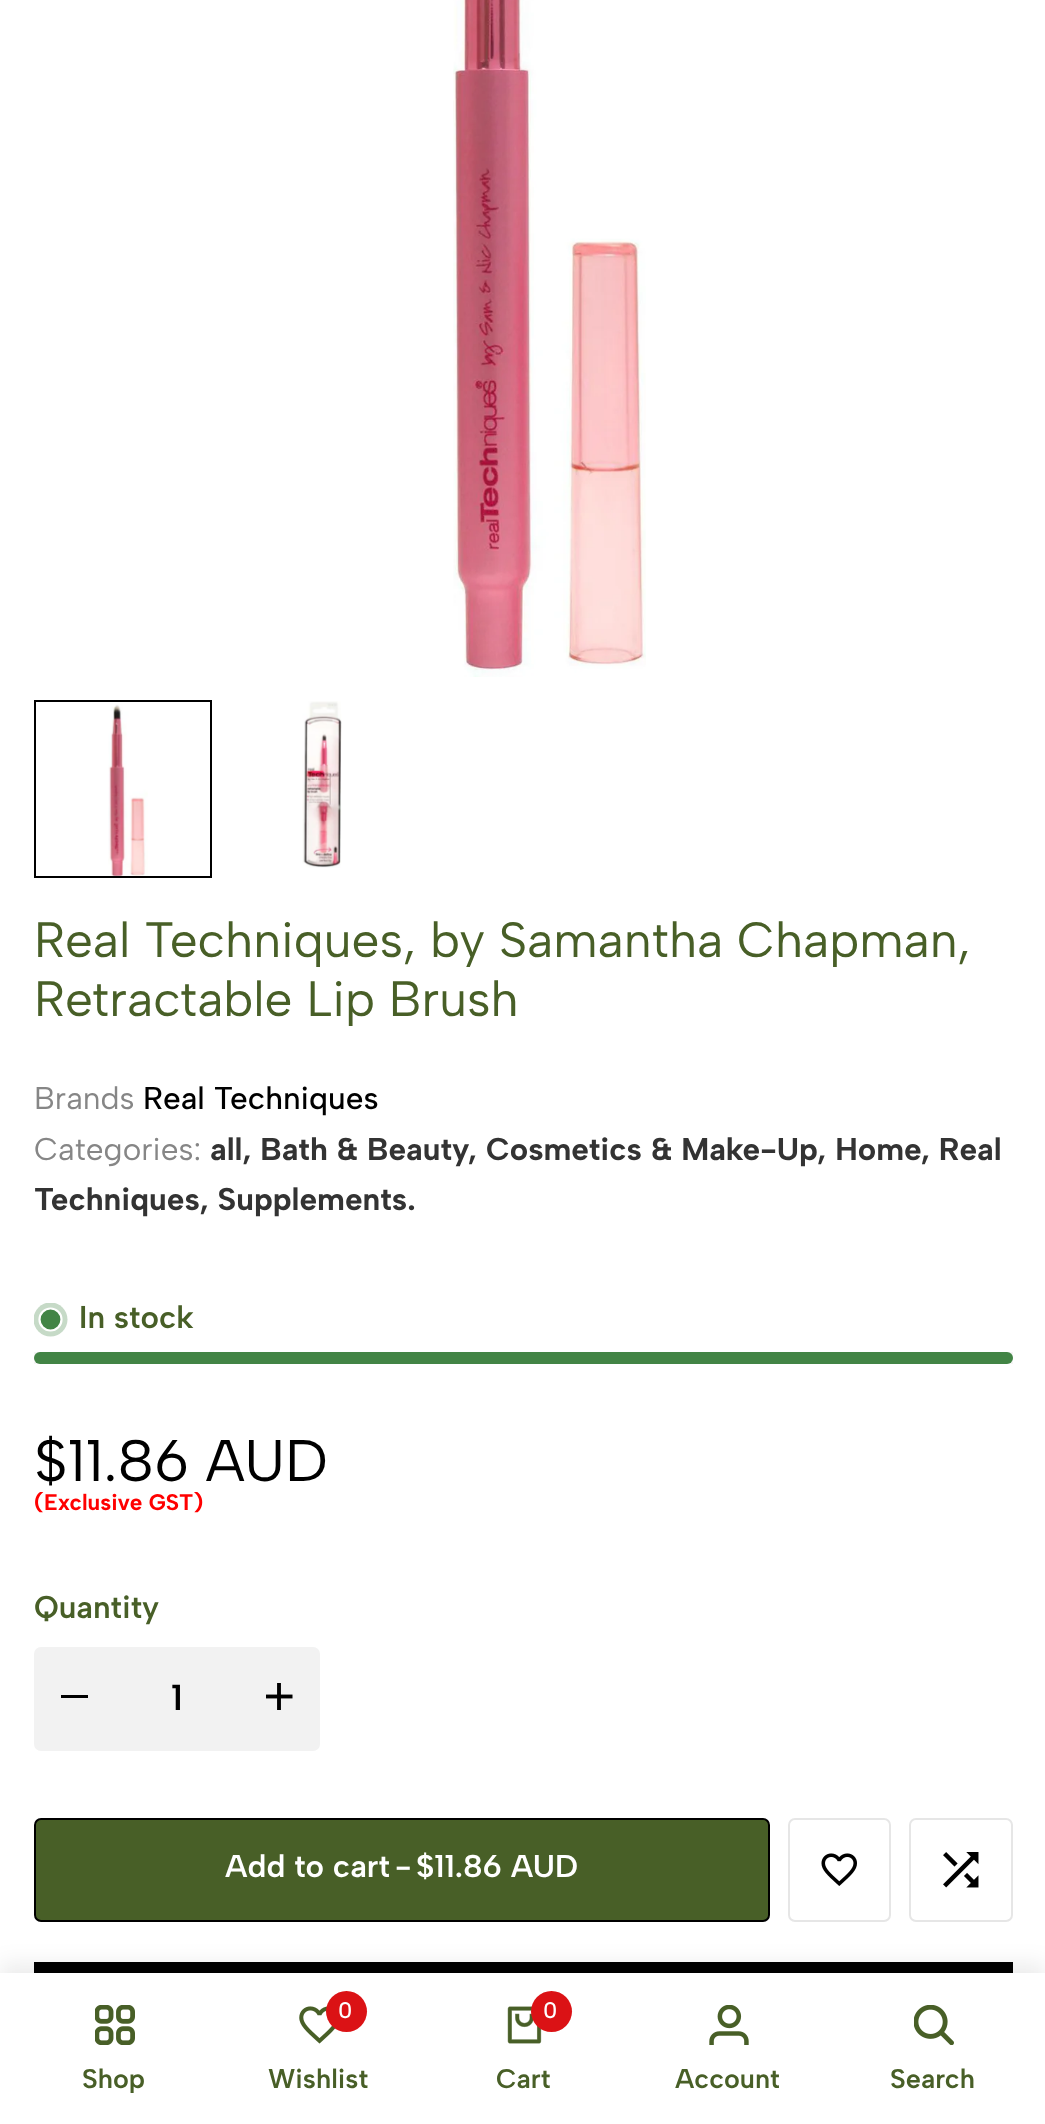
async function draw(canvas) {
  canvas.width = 1045;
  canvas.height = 2124;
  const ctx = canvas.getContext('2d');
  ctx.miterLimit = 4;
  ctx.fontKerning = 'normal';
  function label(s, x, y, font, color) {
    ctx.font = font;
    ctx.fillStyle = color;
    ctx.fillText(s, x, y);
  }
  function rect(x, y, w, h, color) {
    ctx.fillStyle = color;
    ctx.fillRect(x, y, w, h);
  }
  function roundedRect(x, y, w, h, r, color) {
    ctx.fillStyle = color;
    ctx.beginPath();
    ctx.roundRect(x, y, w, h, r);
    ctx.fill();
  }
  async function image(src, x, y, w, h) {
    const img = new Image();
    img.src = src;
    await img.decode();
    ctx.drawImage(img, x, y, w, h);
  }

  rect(0, 0, 1045, 2124, '#fff');
  await image('assets/img1.png', 453, 0, 193, 677);
  await image('assets/img2.png', 108, 704, 40, 172);
  ctx.strokeStyle = '#000';
  ctx.lineWidth = 2;
  ctx.strokeRect(35, 701, 176, 176);
  await image('assets/img3.png', 302, 701, 40, 167);
  label('Real Techniques, by Samantha Chapman,', 34, 957, '49.5px Albert Sans', '#485f27');
  label('Retractable Lip Brush', 34, 1016, '49.5px Albert Sans', '#485f27');
  label('Brands', 34, 1109, '31.5px Albert Sans', '#868686');
  label('Real Techniques', 143, 1109, '500 31.5px Albert Sans', '#000');
  label('Categories:', 34, 1160, '31.5px Albert Sans', '#868686');
  label('all, Bath & Beauty, Cosmetics & Make-Up, Home, Real', 210, 1160, 'bold 31.5px Albert Sans', '#333');
  label('Techniques, Supplements.', 34, 1210, 'bold 31.5px Albert Sans', '#333');
  ctx.save();
  ctx.beginPath();
  ctx.rect(34, 1303, 34, 34);
  ctx.clip();
  ctx.fillStyle = '#c6dac7';
  ctx.beginPath();
  ctx.arc(50.5, 1319.5, 17, 0, 2 * Math.PI);
  ctx.fill();
  ctx.restore();
  ctx.fillStyle = '#428445';
  ctx.beginPath();
  ctx.arc(50.5, 1319.5, 11, 0, 2 * Math.PI);
  ctx.fill();
  ctx.strokeStyle = '#fff';
  ctx.lineWidth = 2.2;
  ctx.stroke();
  label('In stock', 79, 1328, '600 31.5px Albert Sans', '#485f27');
  rect(34, 1352, 979, 12, '#f5f5f5');
  roundedRect(34, 1352, 979, 12, 6, '#428445');
  label('$11.86 AUD', 34, 1481, '58.5px Albert Sans', '#000');
  label('(Exclusive GST)', 34, 1510, 'bold 22.5px Albert Sans', '#f00');
  label('Quantity', 34, 1618, '600 31.5px Albert Sans', '#485f27');
  roundedRect(34, 1647, 286, 104, 7, '#f2f2f2');
  rect(61, 1695, 27, 3, '#000');
  label('1', 171, 1710, '600 36px Albert Sans', '#000');
  await image('assets/img4.png', 266, 1683, 27, 27);
  ctx.fillStyle = '#485f27';
  ctx.beginPath();
  ctx.roundRect(35, 1819, 734, 102, 6);
  ctx.fill();
  ctx.strokeStyle = '#000';
  ctx.lineWidth = 2;
  ctx.stroke();
  label('Add to cart', 225, 1877, '600 31.5px Albert Sans', '#fff');
  label('-', 395, 1877, '600 31.5px Albert Sans', '#fff');
  label('$11.86 AUD', 416, 1877, '600 31.5px Albert Sans', '#fff');
  ctx.beginPath();
  ctx.roundRect(789, 1819, 101, 102, 6);
  ctx.strokeStyle = '#e6e6e6';
  ctx.stroke();
  await image('assets/img5.png', 821, 1853, 36, 33);
  ctx.beginPath();
  ctx.roundRect(910, 1819, 102, 102, 6);
  ctx.stroke();
  await image('assets/img6.png', 943, 1852, 36, 36);
  rect(34, 1962, 979, 11, '#000');
  ctx.fillStyle = '#00000014';
  ctx.filter = 'blur(11px)';
  ctx.beginPath();
  ctx.rect(0, 1964, 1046, 151);
  ctx.fill();
  ctx.filter = 'none';
  rect(0, 1973, 1045, 151, '#fff');
  await image('assets/img7.png', 95, 2005, 40, 40);
  ctx.save();
  ctx.beginPath();
  ctx.rect(34, 2066, 160, 27);
  ctx.clip();
  label('Shop', 82, 2088, '600 27px Albert Sans', '#485f27');
  ctx.restore();
  await image('assets/img8.png', 299, 2006, 37, 38);
  ctx.fillStyle = '#db1215';
  ctx.beginPath();
  ctx.arc(346.5, 2011.5, 20.5, 0, 2 * Math.PI);
  ctx.fill();
  label('0', 338, 2018, '500 22.5px Albert Sans', '#fff');
  label('Wishlist', 268, 2088, '600 27px Albert Sans', '#485f27');
  await image('assets/img9.png', 507, 2006, 35, 38);
  ctx.fillStyle = '#db1215';
  ctx.beginPath();
  ctx.arc(551.5, 2011.5, 20.5, 0, 2 * Math.PI);
  ctx.fill();
  label('0', 543, 2018, '500 22.5px Albert Sans', '#fff');
  label('Cart', 496, 2088, '600 27px Albert Sans', '#485f27');
  await image('assets/img10.png', 709, 2005, 40, 40);
  label('Account', 675, 2088, '600 27px Albert Sans', '#485f27');
  await image('assets/img11.png', 914, 2005, 40, 40);
  label('Search', 890, 2088, '600 27px Albert Sans', '#485f27');
}

draw(document.querySelector('canvas'));
